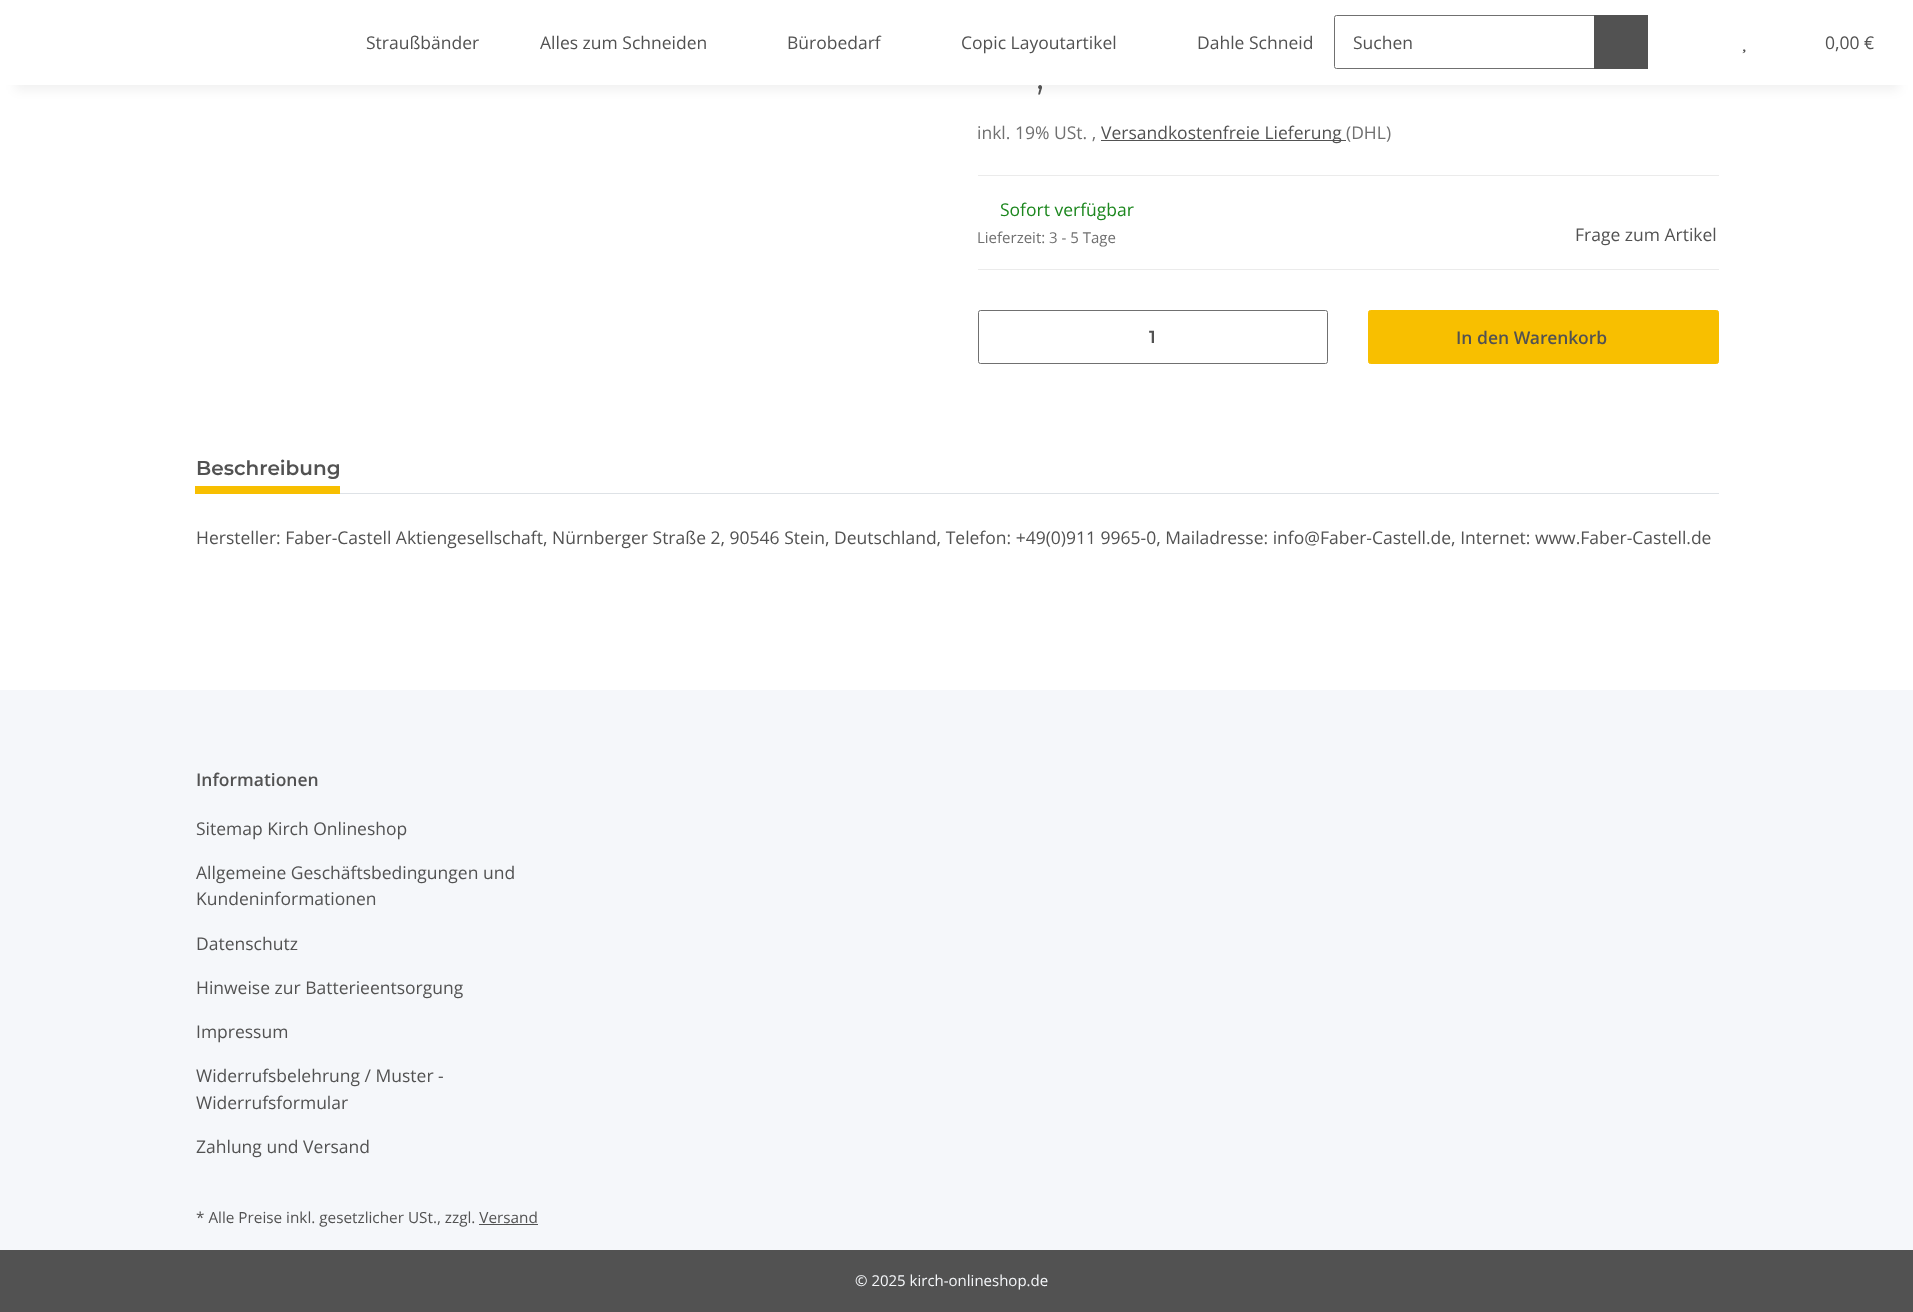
async function draw(canvas) {
  canvas.width = 1913;
  canvas.height = 1312;
  const ctx = canvas.getContext('2d');
  ctx.miterLimit = 4;
  ctx.fontKerning = 'normal';
  function label(s, x, y, font, color) {
    ctx.font = font;
    ctx.fillStyle = color;
    ctx.fillText(s, x, y);
  }
  function rect(x, y, w, h, color) {
    ctx.fillStyle = color;
    ctx.fillRect(x, y, w, h);
  }
  async function image(src, x, y, w, h) {
    const img = new Image();
    img.src = src;
    await img.decode();
    ctx.drawImage(img, x, y, w, h);
  }

  rect(0, 0, 1913, 1312, '#f5f7fa');
  rect(0, 85, 1913, 605, '#fff');
  ctx.fillStyle = '#0000000f';
  ctx.filter = 'blur(5.5px)';
  ctx.beginPath();
  ctx.rect(15, 35, 1884, 55);
  ctx.fill();
  ctx.filter = 'none';
  rect(0, 0, 1913, 85, '#fff');
  label('Straußbänder', 366, 49, '17.5px Open Sans', '#525252');
  label('Alles zum Schneiden', 540, 49, '17.5px Open Sans', '#525252');
  label('Bürobedarf', 787, 49, '17.5px Open Sans', '#525252');
  label('Copic Layoutartikel', 961, 49, '17.5px Open Sans', '#525252');
  label('Dahle Schneid', 1197, 49, '17.5px Open Sans', '#525252');
  ctx.beginPath();
  ctx.roundRect(1334.5, 15.5, 260, 53, [2, 0, 0, 2]);
  ctx.strokeStyle = '#707070';
  ctx.stroke();
  label('Suchen', 1353, 49, '17.5px Open Sans', '#525252');
  rect(1594, 15, 54, 54, '#525252');
  await image('assets/img1.png', 1742, 49, 4, 5);
  label('0,00 €', 1825, 49, '17.5px Open Sans', '#525252');
  label(',', 1036, 89, '38px Montserrat', '#525252');
  label('inkl. 19% USt. ,', 977, 139, '17.5px Open Sans', '#707070');
  rect(1101, 140, 245, 1, '#525252');
  label('Versandkostenfreie Lieferung', 1101, 139, '17.5px Open Sans', '#525252');
  label('(DHL)', 1346, 139, '17.5px Open Sans', '#707070');
  rect(978, 175, 741, 1, '#ebebeb');
  rect(978, 269, 741, 1, '#ebebeb');
  label('Sofort verfügbar', 1000, 216, '17.5px Open Sans', '#1c871e');
  label('Lieferzeit: 3 - 5 Tage', 977, 243, '15px Open Sans', '#707070');
  label('Frage zum Artikel', 1575, 241, '17.5px Open Sans', '#525252');
  ctx.beginPath();
  ctx.roundRect(978.5, 310.5, 349, 53, 2);
  ctx.stroke();
  label('1', 1149, 343, '600 17.5px Montserrat', '#525252');
  ctx.fillStyle = '#f8bf00';
  ctx.beginPath();
  ctx.roundRect(1368.5, 310.5, 350, 53, 2);
  ctx.fill();
  ctx.strokeStyle = '#f8bf00';
  ctx.stroke();
  label('In den Warenkorb', 1456, 344, '600 17.5px Open Sans', '#525252');
  rect(340, 493, 1379, 1, '#dee2e6');
  label('Beschreibung', 196, 475, '600 20px Montserrat', '#525252');
  rect(195, 486, 145, 8, '#f8bf00');
  label('Hersteller: Faber-Castell Aktiengesellschaft, Nürnberger Straße 2, 90546 Stein, Deutschland, Telefon: +49(0)911 9965-0, Mailadresse: info@Faber-Castell.de, Internet: www.Faber-Castell.de', 196, 544, '17.5px Open Sans', '#525252');
  label('Informationen', 196, 786, '600 17.5px Open Sans', '#525252');
  label('Sitemap Kirch Onlineshop', 196, 835, '17.5px Open Sans', '#525252');
  label('Allgemeine Geschäftsbedingungen und', 196, 879, '17.5px Open Sans', '#525252');
  label('Kundeninformationen', 196, 905, '17.5px Open Sans', '#525252');
  label('Datenschutz', 196, 950, '17.5px Open Sans', '#525252');
  label('Hinweise zur Batterieentsorgung', 196, 994, '17.5px Open Sans', '#525252');
  label('Impressum', 196, 1038, '17.5px Open Sans', '#525252');
  label('Widerrufsbelehrung / Muster -', 196, 1082, '17.5px Open Sans', '#525252');
  label('Widerrufsformular', 196, 1109, '17.5px Open Sans', '#525252');
  label('Zahlung und Versand', 196, 1153, '17.5px Open Sans', '#525252');
  label('* Alle Preise inkl. gesetzlicher USt., zzgl. Versand', 196, 1223, '15.3px Open Sans', '#525252');
  rect(479, 1224, 59, 1, '#525252');
  rect(0, 1250, 1913, 62, '#525252');
  label('© 2025 kirch-onlineshop.de', 855, 1286, '15px Open Sans', '#f5f7fa');
}

draw(document.querySelector('canvas'));
